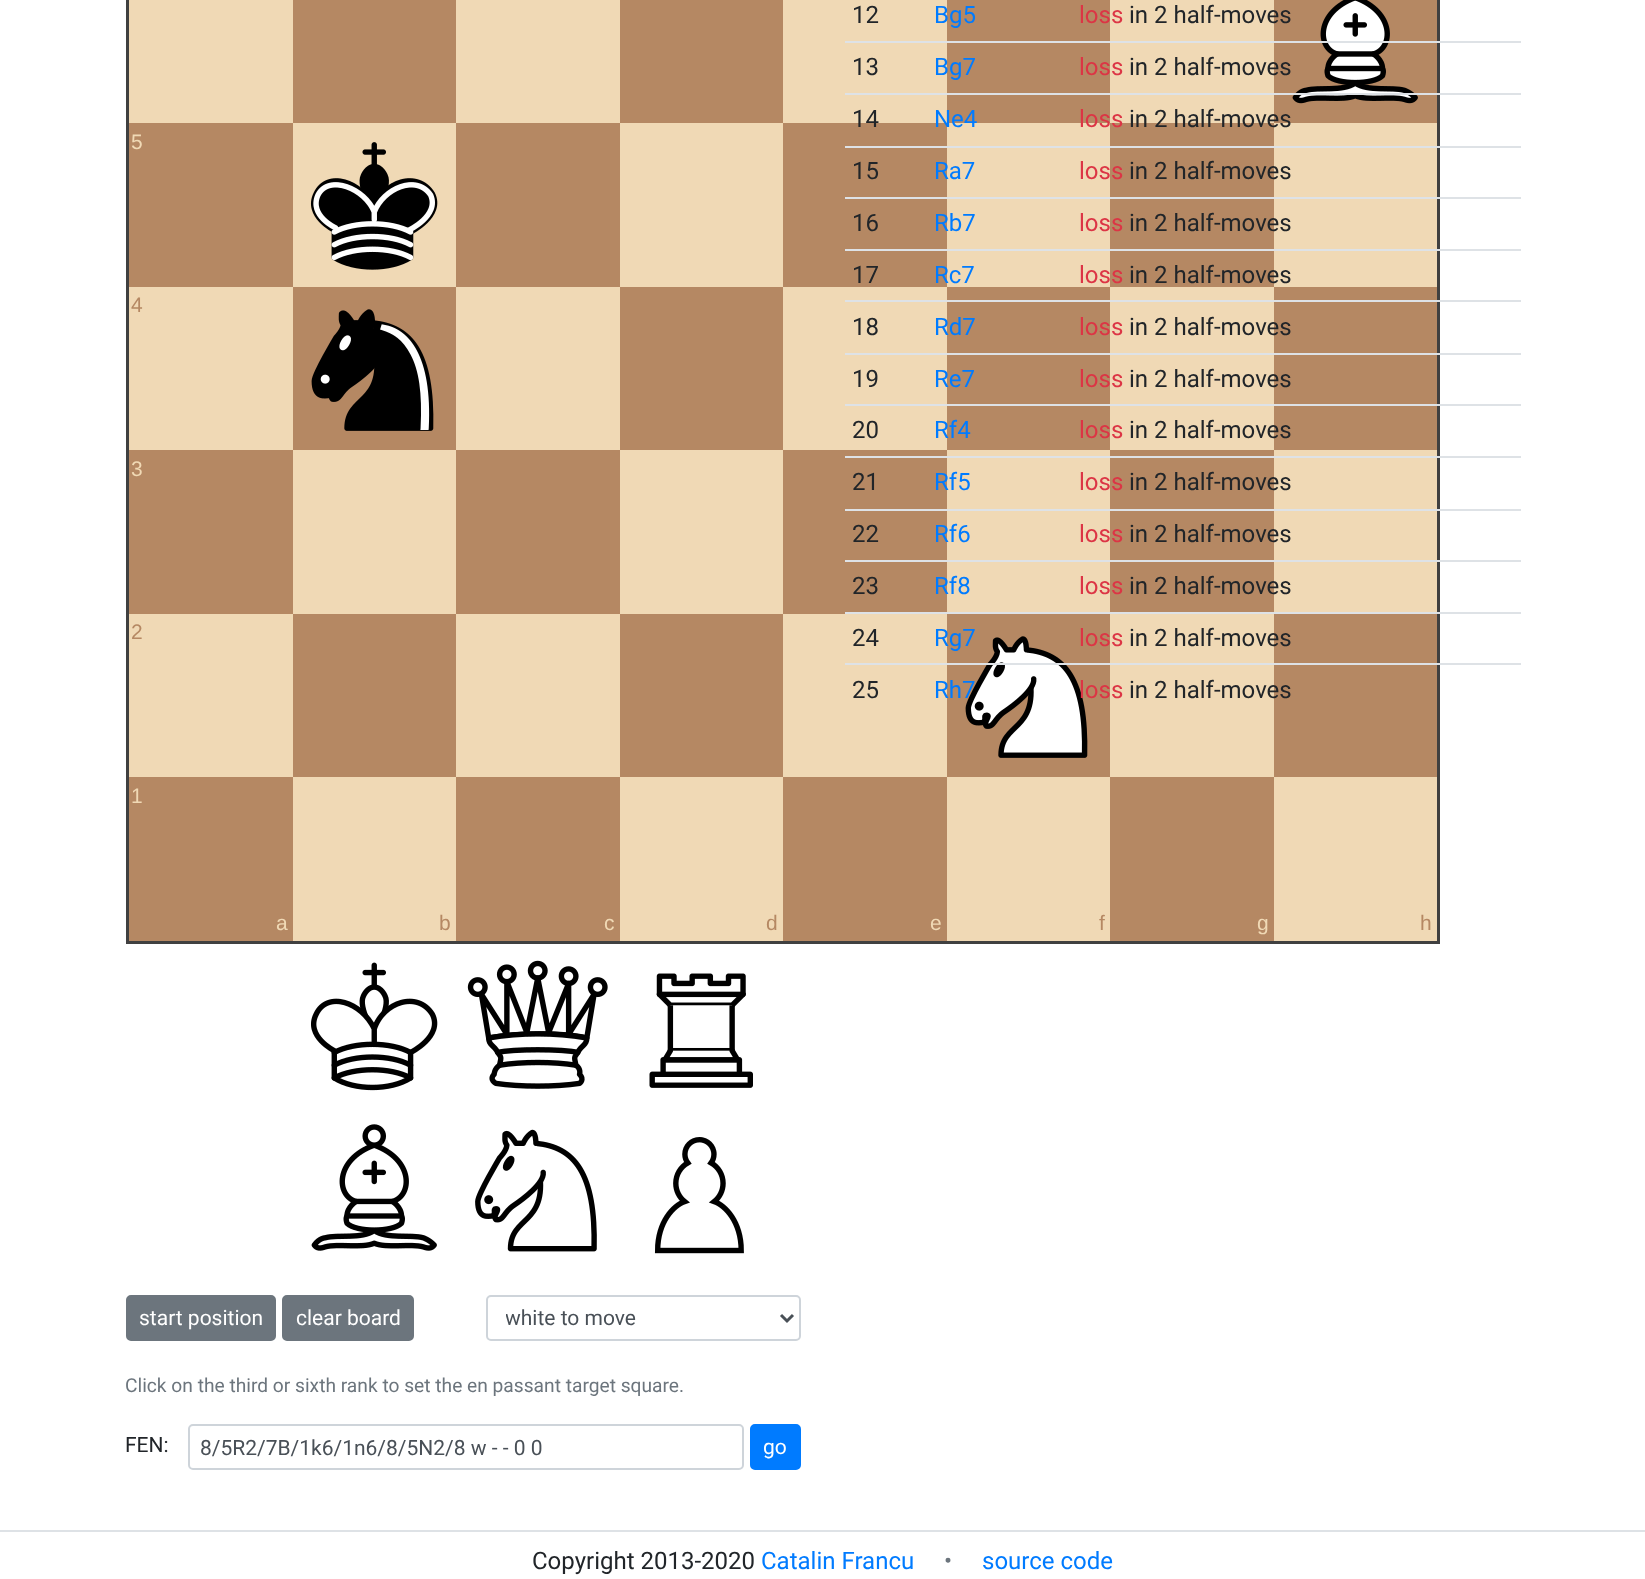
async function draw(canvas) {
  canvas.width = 1645;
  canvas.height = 1579;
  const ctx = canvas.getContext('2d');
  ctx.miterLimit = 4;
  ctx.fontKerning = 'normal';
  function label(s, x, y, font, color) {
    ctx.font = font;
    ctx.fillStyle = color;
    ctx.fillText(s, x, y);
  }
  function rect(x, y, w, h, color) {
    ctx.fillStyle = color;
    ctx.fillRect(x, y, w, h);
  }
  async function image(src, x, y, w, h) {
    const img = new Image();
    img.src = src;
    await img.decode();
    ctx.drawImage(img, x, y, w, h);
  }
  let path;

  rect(0, 0, 1645, 1579, '#fff');
  ctx.strokeStyle = '#404040';
  ctx.lineWidth = 3;
  ctx.strokeRect(127.5, -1.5, 1311, 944);
  rect(783, 0, 164, 123, '#f0d9b5');
  label('12', 852, 23, '24px Roboto', '#212529');
  rect(947, 0, 163, 123, '#b58863');
  label('Bg5', 934, 23, '24px Roboto', '#007bff');
  rect(1110, 0, 164, 123, '#f0d9b5');
  label('loss', 1079, 23, '24px Roboto', '#dc3545');
  rect(1274, 0, 163, 123, '#b58863');
  label('in 2 half-moves', 1129, 23, '24px Roboto', '#212529');
  label('13', 852, 75, '24px Roboto', '#212529');
  label('Bg7', 934, 75, '24px Roboto', '#007bff');
  await image('assets/img1.png', 1292, 0, 126, 104);
  rect(845, 41, 676, 2, '#dee2e6');
  label('loss', 1079, 75, '24px Roboto', '#dc3545');
  label('in 2 half-moves', 1129, 75, '24px Roboto', '#212529');
  rect(783, 123, 164, 164, '#b58863');
  label('14', 852, 127, '24px Roboto', '#212529');
  rect(947, 123, 163, 164, '#f0d9b5');
  label('Ne4', 934, 127, '24px Roboto', '#007bff');
  rect(845, 93, 676, 2, '#dee2e6');
  rect(1110, 123, 164, 164, '#b58863');
  label('loss', 1079, 127, '24px Roboto', '#dc3545');
  rect(1274, 123, 163, 164, '#f0d9b5');
  label('in 2 half-moves', 1129, 127, '24px Roboto', '#212529');
  label('15', 852, 179, '24px Roboto', '#212529');
  label('Ra7', 934, 179, '24px Roboto', '#007bff');
  rect(845, 146, 676, 2, '#dee2e6');
  label('loss', 1079, 179, '24px Roboto', '#dc3545');
  label('in 2 half-moves', 1129, 179, '24px Roboto', '#212529');
  label('16', 852, 231, '24px Roboto', '#212529');
  label('Rb7', 934, 231, '24px Roboto', '#007bff');
  rect(845, 197, 676, 2, '#dee2e6');
  label('loss', 1079, 231, '24px Roboto', '#dc3545');
  label('in 2 half-moves', 1129, 231, '24px Roboto', '#212529');
  label('17', 852, 283, '24px Roboto', '#212529');
  label('Rc7', 934, 283, '24px Roboto', '#007bff');
  rect(845, 249, 676, 2, '#dee2e6');
  label('loss', 1079, 283, '24px Roboto', '#dc3545');
  label('in 2 half-moves', 1129, 283, '24px Roboto', '#212529');
  rect(783, 287, 164, 163, '#f0d9b5');
  label('18', 852, 335, '24px Roboto', '#212529');
  rect(947, 287, 163, 163, '#b58863');
  label('Rd7', 934, 335, '24px Roboto', '#007bff');
  rect(1110, 287, 164, 163, '#f0d9b5');
  rect(1274, 287, 163, 163, '#b58863');
  rect(845, 300, 676, 2, '#dee2e6');
  label('loss', 1079, 335, '24px Roboto', '#dc3545');
  label('in 2 half-moves', 1129, 335, '24px Roboto', '#212529');
  label('19', 852, 387, '24px Roboto', '#212529');
  label('Re7', 934, 387, '24px Roboto', '#007bff');
  rect(845, 353, 676, 2, '#dee2e6');
  label('loss', 1079, 387, '24px Roboto', '#dc3545');
  label('in 2 half-moves', 1129, 387, '24px Roboto', '#212529');
  label('20', 852, 438, '24px Roboto', '#212529');
  label('Rf4', 934, 438, '24px Roboto', '#007bff');
  rect(845, 404, 676, 2, '#dee2e6');
  label('loss', 1079, 438, '24px Roboto', '#dc3545');
  label('in 2 half-moves', 1129, 438, '24px Roboto', '#212529');
  rect(783, 450, 164, 164, '#b58863');
  label('21', 852, 490, '24px Roboto', '#212529');
  rect(947, 450, 163, 162, '#f0d9b5');
  label('Rf5', 934, 490, '24px Roboto', '#007bff');
  rect(1110, 450, 164, 162, '#b58863');
  rect(1274, 450, 163, 162, '#f0d9b5');
  rect(845, 456, 676, 2, '#dee2e6');
  label('loss', 1079, 490, '24px Roboto', '#dc3545');
  label('in 2 half-moves', 1129, 490, '24px Roboto', '#212529');
  label('22', 852, 542, '24px Roboto', '#212529');
  label('Rf6', 934, 542, '24px Roboto', '#007bff');
  rect(845, 509, 676, 2, '#dee2e6');
  label('loss', 1079, 542, '24px Roboto', '#dc3545');
  label('in 2 half-moves', 1129, 542, '24px Roboto', '#212529');
  label('23', 852, 594, '24px Roboto', '#212529');
  label('Rf8', 934, 594, '24px Roboto', '#007bff');
  rect(845, 560, 676, 2, '#dee2e6');
  label('loss', 1079, 594, '24px Roboto', '#dc3545');
  label('in 2 half-moves', 1129, 594, '24px Roboto', '#212529');
  rect(783, 614, 164, 163, '#f0d9b5');
  label('24', 852, 646, '24px Roboto', '#212529');
  rect(947, 614, 163, 163, '#b58863');
  await image('assets/img4.png', 965, 636, 123, 122);
  label('Rg7', 934, 646, '24px Roboto', '#007bff');
  rect(845, 612, 676, 2, '#dee2e6');
  rect(1110, 614, 164, 163, '#f0d9b5');
  label('loss', 1079, 646, '24px Roboto', '#dc3545');
  rect(1274, 614, 163, 163, '#b58863');
  label('in 2 half-moves', 1129, 646, '24px Roboto', '#212529');
  label('25', 852, 698, '24px Roboto', '#212529');
  label('Rh7', 934, 698, '24px Roboto', '#007bff');
  rect(845, 663, 676, 2, '#dee2e6');
  label('loss', 1079, 698, '24px Roboto', '#dc3545');
  label('in 2 half-moves', 1129, 698, '24px Roboto', '#212529');
  rect(129, 0, 164, 123, '#f0d9b5');
  rect(293, 0, 163, 123, '#b58863');
  rect(456, 0, 164, 123, '#f0d9b5');
  rect(620, 0, 163, 123, '#b58863');
  rect(129, 123, 164, 164, '#b58863');
  label('5', 131, 149, '21px Liberation Sans', '#f0d9b5');
  rect(293, 123, 163, 164, '#f0d9b5');
  await image('assets/img2.png', 310, 142, 128, 128);
  rect(456, 123, 164, 164, '#b58863');
  rect(620, 123, 163, 164, '#f0d9b5');
  rect(129, 287, 164, 163, '#f0d9b5');
  label('4', 131, 312, '21px Liberation Sans', '#b58863');
  rect(293, 287, 163, 163, '#b58863');
  await image('assets/img3.png', 311, 309, 123, 122);
  rect(456, 287, 164, 163, '#f0d9b5');
  rect(620, 287, 163, 163, '#b58863');
  rect(129, 450, 164, 164, '#b58863');
  label('3', 131, 476, '21px Liberation Sans', '#f0d9b5');
  rect(293, 450, 163, 164, '#f0d9b5');
  rect(456, 450, 164, 164, '#b58863');
  rect(620, 450, 163, 164, '#f0d9b5');
  rect(129, 614, 164, 163, '#f0d9b5');
  label('2', 131, 639, '21px Liberation Sans', '#b58863');
  rect(293, 614, 163, 163, '#b58863');
  rect(456, 614, 164, 163, '#f0d9b5');
  rect(620, 614, 163, 163, '#b58863');
  rect(129, 777, 164, 164, '#b58863');
  label('1', 131, 803, '21px Liberation Sans', '#f0d9b5');
  label('a', 276, 930, '21px Liberation Sans', '#f0d9b5');
  rect(293, 777, 163, 164, '#f0d9b5');
  label('b', 439, 930, '21px Liberation Sans', '#b58863');
  rect(456, 777, 164, 164, '#b58863');
  label('c', 604, 930, '21px Liberation Sans', '#f0d9b5');
  rect(620, 777, 163, 164, '#f0d9b5');
  label('d', 766, 930, '21px Liberation Sans', '#b58863');
  rect(783, 777, 164, 164, '#b58863');
  label('e', 930, 930, '21px Liberation Sans', '#f0d9b5');
  rect(947, 777, 163, 164, '#f0d9b5');
  label('f', 1099, 930, '21px Liberation Sans', '#b58863');
  rect(1110, 777, 164, 164, '#b58863');
  label('g', 1257, 930, '21px Liberation Sans', '#f0d9b5');
  rect(1274, 777, 163, 164, '#f0d9b5');
  label('h', 1420, 930, '21px Liberation Sans', '#b58863');
  await image('assets/img5.png', 311, 962, 127, 129);
  await image('assets/img6.png', 467, 960, 141, 129);
  await image('assets/img7.png', 649, 973, 104, 115);
  await image('assets/img8.png', 311, 1124, 126, 127);
  await image('assets/img9.png', 475, 1129, 122, 123);
  await image('assets/img10.png', 654, 1137, 90, 117);
  ctx.fillStyle = '#6c757d';
  ctx.beginPath();
  ctx.roundRect(127, 1296, 148, 44, 4);
  ctx.fill();
  ctx.strokeStyle = '#6c757d';
  ctx.lineWidth = 2;
  ctx.stroke();
  label('start position', 139, 1325, '21px Roboto', '#fff');
  ctx.fillStyle = '#6c757d';
  ctx.beginPath();
  ctx.roundRect(283, 1296, 130, 44, 4);
  ctx.fill();
  ctx.stroke();
  label('clear board', 296, 1325, '21px Roboto', '#fff');
  ctx.beginPath();
  ctx.roundRect(487, 1296, 313, 44, 4);
  ctx.strokeStyle = '#ced4da';
  ctx.stroke();
  path = new Path2D('M781 1315L787 1321L793 1315');
  ctx.strokeStyle = '#495057';
  ctx.lineWidth = 3;
  ctx.stroke(path);
  ctx.save();
  ctx.beginPath();
  ctx.rect(506, 1305, 258, 27);
  ctx.clip();
  label('white to move', 505, 1325, '21px Roboto', '#495057');
  ctx.restore();
  label('Click on the third or sixth rank to set the en passant target square.', 125, 1392, '19.2px Roboto', '#6c757d');
  label('FEN:', 125, 1452, '21px Roboto', '#212529');
  ctx.beginPath();
  ctx.roundRect(189, 1425, 554, 44, 4);
  ctx.strokeStyle = '#ced4da';
  ctx.lineWidth = 2;
  ctx.stroke();
  label('8/5R2/7B/1k6/1n6/8/5N2/8 w - - 0 0', 200, 1455, '21px Roboto', '#495057');
  ctx.fillStyle = '#007bff';
  ctx.beginPath();
  ctx.roundRect(751, 1425, 49, 44, 4);
  ctx.fill();
  ctx.strokeStyle = '#007bff';
  ctx.stroke();
  label('go', 763, 1454, '21px Roboto', '#fff');
  rect(0, 1530, 1645, 2, '#dee2e6');
  label('Copyright 2013-2020', 532, 1569, '24px Roboto', '#212529');
  label('Catalin Francu', 761, 1569, '24px Roboto', '#007bff');
  label('•', 944, 1569, '24px Roboto', '#6c757d');
  label('source code', 982, 1569, '24px Roboto', '#007bff');
}

draw(document.querySelector('canvas'));
